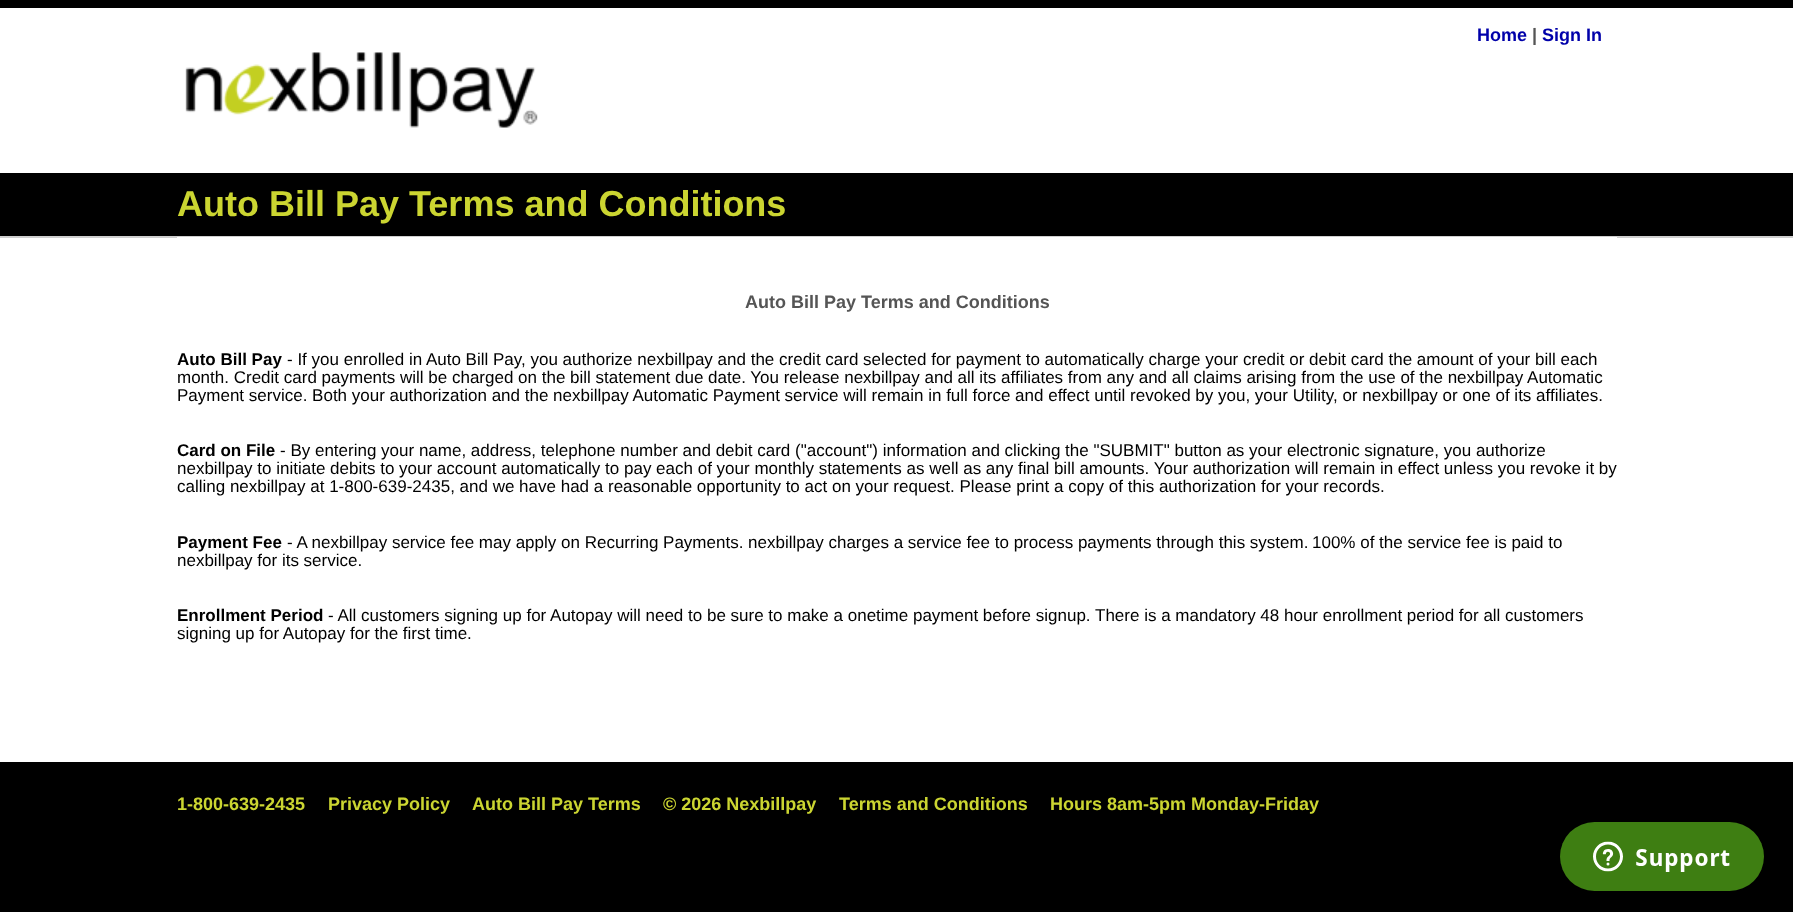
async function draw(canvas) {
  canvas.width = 1793;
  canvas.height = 912;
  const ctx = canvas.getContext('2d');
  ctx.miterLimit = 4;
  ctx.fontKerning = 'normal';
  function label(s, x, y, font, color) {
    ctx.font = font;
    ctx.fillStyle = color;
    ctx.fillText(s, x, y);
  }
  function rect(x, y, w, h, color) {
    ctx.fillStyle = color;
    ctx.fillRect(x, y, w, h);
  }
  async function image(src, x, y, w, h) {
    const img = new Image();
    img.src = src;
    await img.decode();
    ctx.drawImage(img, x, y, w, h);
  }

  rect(0, 0, 1793, 912, '#fff');
  rect(0, 0, 1793, 8, '#000');
  label('Home', 1477, 41, 'bold 18px Liberation Sans', '#00a');
  label('|', 1532, 41, 'bold 18px Liberation Sans', '#555');
  label('Sign In', 1542, 41, 'bold 18px Liberation Sans', '#00a');
  await image('assets/img1.png', 185, 52, 353, 76);
  rect(0, 173, 1793, 63, '#000');
  rect(0, 236, 1793, 2, '#cfcfcf');
  label('Auto Bill Pay Terms and Conditions', 177, 216, 'bold 36px Liberation Sans', '#cbd531');
  rect(177, 237, 1440, 1, '#fff');
  label('Auto Bill Pay Terms and Conditions', 745, 308, 'bold 18px Liberation Sans', '#555');
  label('Auto Bill Pay', 177, 365, 'bold 17px Liberation Sans', '#000');
  label('- If you enrolled in Auto Bill Pay, you authorize nexbillpay and the credit card selected for payment to automatically charge your credit or debit card the amount of your bill each', 287, 365, '17px Liberation Sans', '#000');
  label('month. Credit card payments will be charged on the bill statement due date. You release nexbillpay and all its affiliates from any and all claims arising from the use of the nexbillpay Automatic', 177, 383, '17px Liberation Sans', '#000');
  label('Payment service. Both your authorization and the nexbillpay Automatic Payment service will remain in full force and effect until revoked by you, your Utility, or nexbillpay or one of its affiliates.', 177, 401, '17px Liberation Sans', '#000');
  label('Card on File', 177, 456, 'bold 17px Liberation Sans', '#000');
  label('- By entering your name, address, telephone number and debit card ("account") information and clicking the "SUBMIT" button as your electronic signature, you authorize', 280, 456, '17px Liberation Sans', '#000');
  label('nexbillpay to initiate debits to your account automatically to pay each of your monthly statements as well as any final bill amounts. Your authorization will remain in effect unless you revoke it by', 177, 474, '17px Liberation Sans', '#000');
  label('calling nexbillpay at 1-800-639-2435, and we have had a reasonable opportunity to act on your request. Please print a copy of this authorization for your records.', 177, 492, '17px Liberation Sans', '#000');
  label('Payment Fee', 177, 548, 'bold 17px Liberation Sans', '#000');
  label('- A nexbillpay service fee may apply on Recurring Payments. nexbillpay charges a service fee to process payments through this system.', 287, 548, '17px Liberation Sans', '#000');
  label('100% of the service fee is paid to', 1312, 548, '17px Liberation Sans', '#000');
  label('nexbillpay for its service.', 177, 566, '17px Liberation Sans', '#000');
  label('Enrollment Period', 177, 621, 'bold 17px Liberation Sans', '#000');
  label('- All customers signing up for Autopay will need to be sure to make a onetime payment before signup. There is a mandatory 48 hour enrollment period for all customers', 328, 621, '17px Liberation Sans', '#000');
  label('signing up for Autopay for the first time.', 177, 639, '17px Liberation Sans', '#000');
  rect(0, 762, 1793, 150, '#000');
  label('1-800-639-2435', 177, 810, 'bold 18px Liberation Sans', '#cbd531');
  label('Privacy Policy', 328, 810, 'bold 18px Liberation Sans', '#cbd531');
  label('Auto Bill Pay Terms', 472, 810, 'bold 18px Liberation Sans', '#cbd531');
  label('© 2026 Nexbillpay', 663, 810, 'bold 18px Liberation Sans', '#cbd531');
  label('Terms and Conditions', 839, 810, 'bold 18px Liberation Sans', '#cbd531');
  label('Hours 8am-5pm Monday-Friday', 1050, 810, 'bold 18px Liberation Sans', '#cbd531');
  await image('assets/img2.png', 1560, 822, 204, 69);
}

draw(document.querySelector('canvas'));
